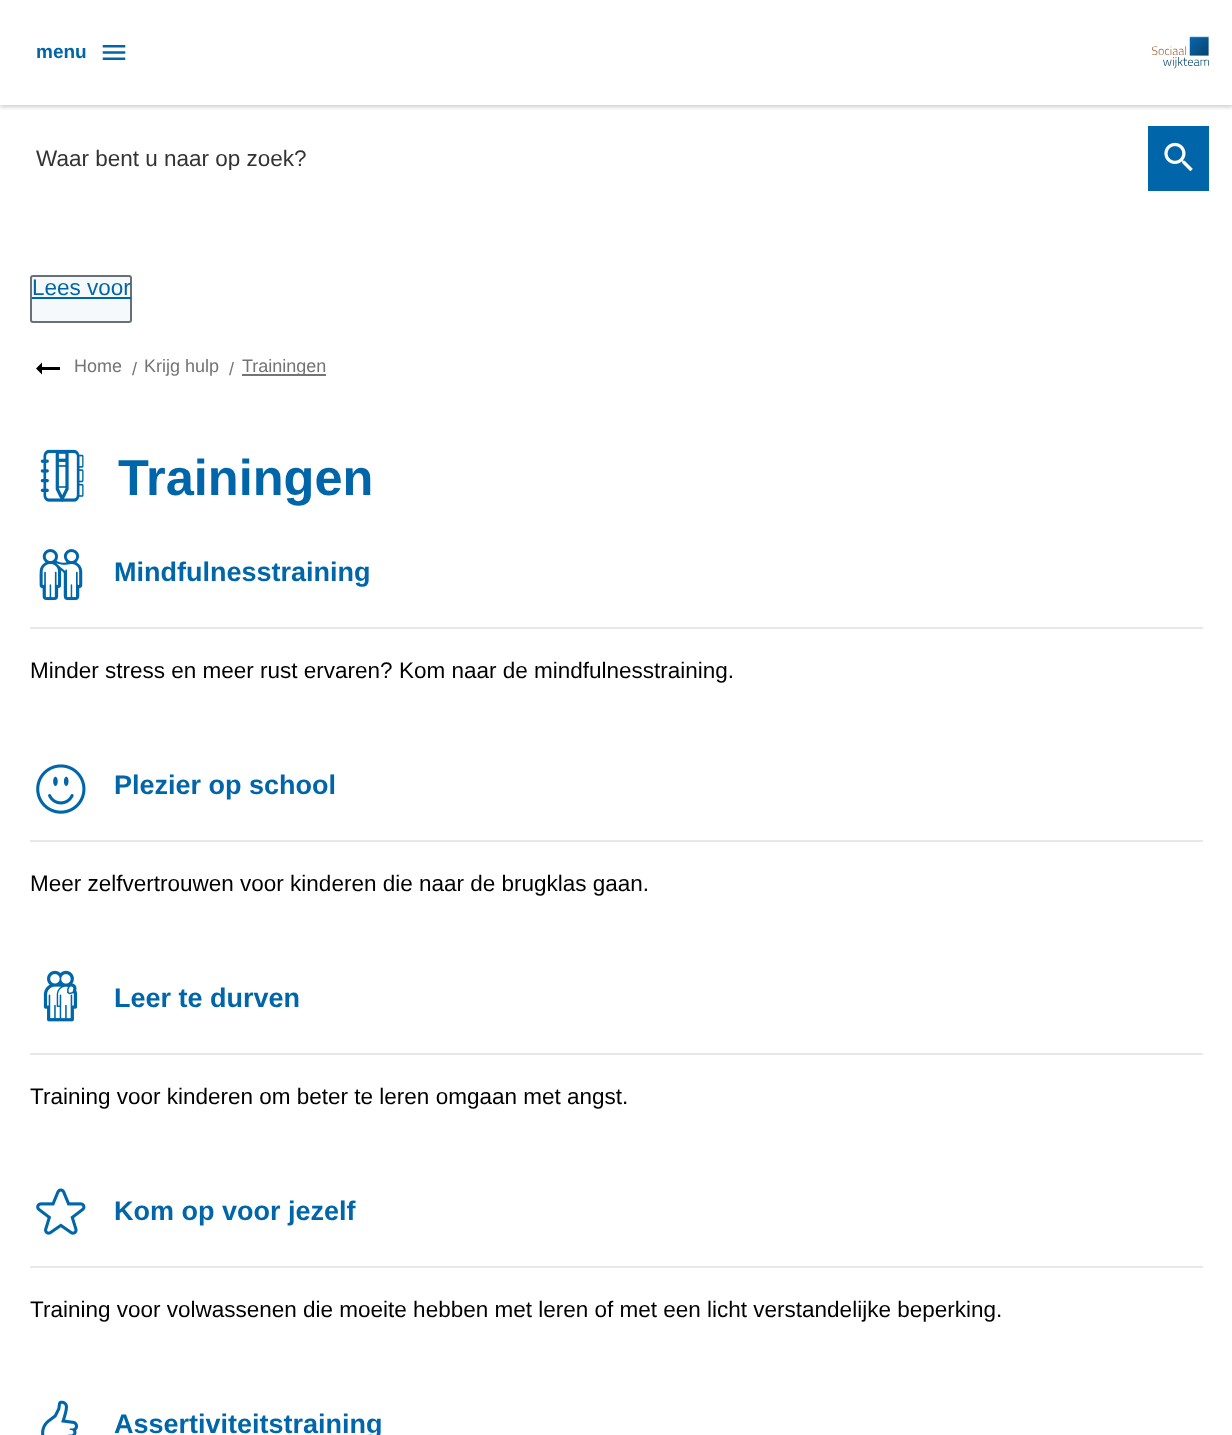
async function draw(canvas) {
  canvas.width = 1232;
  canvas.height = 1435;
  const ctx = canvas.getContext('2d');
  ctx.miterLimit = 4;
  ctx.fontKerning = 'normal';
  function label(s, x, y, font, color) {
    ctx.font = font;
    ctx.fillStyle = color;
    ctx.fillText(s, x, y);
  }
  function rect(x, y, w, h, color) {
    ctx.fillStyle = color;
    ctx.fillRect(x, y, w, h);
  }
  async function image(src, x, y, w, h) {
    const img = new Image();
    img.src = src;
    await img.decode();
    ctx.drawImage(img, x, y, w, h);
  }
  let path;

  rect(0, 0, 1232, 1435, '#fff');
  ctx.save();
  ctx.beginPath();
  ctx.rect(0, 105, 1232, 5);
  ctx.clip();
  ctx.fillStyle = '#00000033';
  ctx.filter = 'blur(2px)';
  ctx.beginPath();
  ctx.rect(0, 2, 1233, 105);
  ctx.fill();
  ctx.filter = 'none';
  ctx.restore();
  label('menu', 36, 58, 'bold 19px Liberation Sans', '#0066a9');
  await image('assets/img1.png', 102, 45, 24, 15);
  await image('assets/img2.png', 1152, 36, 57, 33);
  ctx.save();
  ctx.beginPath();
  ctx.rect(36, 144, 1094, 26);
  ctx.clip();
  label('Waar bent u naar op zoek?', 36, 166, '22.5px Liberation Sans', '#333');
  ctx.restore();
  rect(1148, 126, 61, 65, '#0066a9');
  await image('assets/img3.png', 1164, 142, 29, 30);
  ctx.fillStyle = '#f6f9fc';
  ctx.beginPath();
  ctx.roundRect(31, 276, 100, 46, 2);
  ctx.fill();
  ctx.strokeStyle = '#677077';
  ctx.lineWidth = 2;
  ctx.stroke();
  label('Lees voor', 32, 295, '22.5px Liberation Sans', '#0066a9');
  rect(32, 297, 99, 2, '#0066a9');
  ctx.fillStyle = '#000';
  path = new Path2D('M42 370H60V367H42V362.5L36 368.5L42 374.5Z');
  ctx.fill(path);
  label('Home', 74, 372, '18px Liberation Sans', '#747474');
  label('/', 132, 375, '18px Liberation Sans', '#747474');
  label('Krijg hulp', 144, 372, '18px Liberation Sans', '#747474');
  label('/', 229, 375, '18px Liberation Sans', '#747474');
  rect(242, 374, 84, 2, '#747474');
  label('Trainingen', 242, 372, '18px Liberation Sans', '#747474');
  await image('assets/img4.png', 40, 449, 44, 54);
  label('Trainingen', 118, 495, 'bold 50.5px Liberation Sans', '#0066a9');
  rect(30, 627, 1173, 2, '#e8e8e8');
  await image('assets/img5.png', 39, 549, 44, 52);
  label('Mindfulnesstraining', 114, 581, 'bold 27px Liberation Sans', '#0066a9');
  label('Minder stress en meer rust ervaren? Kom naar de mindfulnesstraining.', 30, 678, '22.5px Liberation Sans', '#000');
  rect(30, 840, 1173, 2, '#e8e8e8');
  await image('assets/img6.png', 36, 764, 50, 50);
  label('Plezier op school', 114, 794, 'bold 27px Liberation Sans', '#0066a9');
  label('Meer zelfvertrouwen voor kinderen die naar de brugklas gaan.', 30, 891, '22.5px Liberation Sans', '#000');
  rect(30, 1053, 1173, 2, '#e8e8e8');
  await image('assets/img7.png', 43, 970, 35, 52);
  label('Leer te durven', 114, 1007, 'bold 27px Liberation Sans', '#0066a9');
  label('Training voor kinderen om beter te leren omgaan met angst.', 30, 1104, '22.5px Liberation Sans', '#000');
  rect(30, 1266, 1173, 2, '#e8e8e8');
  await image('assets/img8.png', 36, 1188, 50, 47);
  label('Kom op voor jezelf', 114, 1220, 'bold 27px Liberation Sans', '#0066a9');
  label('Training voor volwassenen die moeite hebben met leren of met een licht verstandelijke beperking.', 30, 1317, '22.5px Liberation Sans', '#000');
  await image('assets/img9.png', 41, 1400, 38, 35);
  label('Assertiviteitstraining', 114, 1433, 'bold 27px Liberation Sans', '#0066a9');
}

draw(document.querySelector('canvas'));
